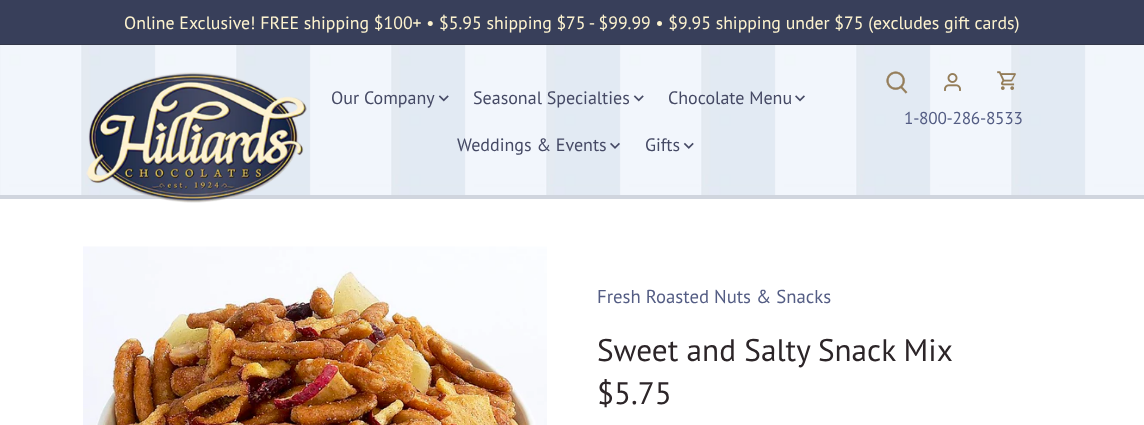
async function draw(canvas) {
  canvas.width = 1144;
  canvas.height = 425;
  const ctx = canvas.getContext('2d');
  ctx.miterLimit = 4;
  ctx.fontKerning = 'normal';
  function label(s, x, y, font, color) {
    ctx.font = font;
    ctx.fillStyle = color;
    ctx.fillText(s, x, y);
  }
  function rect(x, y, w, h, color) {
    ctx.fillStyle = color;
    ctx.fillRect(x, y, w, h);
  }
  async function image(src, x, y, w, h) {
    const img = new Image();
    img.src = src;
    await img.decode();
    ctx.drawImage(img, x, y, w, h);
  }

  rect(0, 0, 1144, 425, '#fff');
  rect(0, 0, 1144, 44, '#383f5a');
  rect(0, 44, 1144, 1, '#333749');
  label('Online Exclusive! FREE shipping $100+ • $5.95 shipping $75 - $99.99 • $9.95 shipping under $75 (excludes gift cards)', 124, 29, '17.8px PT Sans', '#fdf3cf');
  await image('assets/img1.png', 0, 45, 1144, 150);
  rect(0, 195, 1144, 4, '#d0d5de');
  await image('assets/img2.png', 86, 72, 221, 131);
  label('Our Company', 331, 104, '18px PT Sans', '#454964');
  await image('assets/img3.png', 438, 95, 11, 7);
  label('Seasonal Specialties', 473, 104, '18px PT Sans', '#454964');
  await image('assets/img4.png', 633, 95, 11, 7);
  label('Chocolate Menu', 668, 104, '18px PT Sans', '#454964');
  await image('assets/img5.png', 795, 95, 10, 7);
  label('Weddings & Events', 457, 151, '18px PT Sans', '#454964');
  await image('assets/img6.png', 610, 142, 10, 7);
  label('Gifts', 645, 151, '18px PT Sans', '#454964');
  await image('assets/img7.png', 683, 142, 11, 7);
  await image('assets/img8.png', 886, 71, 22, 23);
  await image('assets/img9.png', 944, 73, 17, 18);
  await image('assets/img10.png', 997, 71, 19, 19);
  ctx.letterSpacing = '-0.25px';
  label('1-800-286-8533', 904, 124, '17.25px PT Sans', '#545d84');
  await image('assets/img11.png', 83, 246, 464, 179);
  ctx.letterSpacing = '0px';
  label('Fresh Roasted Nuts & Snacks', 597, 303, '18.75px PT Sans', '#545d84');
  label('Sweet and Salty Snack Mix', 597, 361, '31.25px PT Sans', '#2c2528');
  label('$5.75', 597, 404, '31.25px PT Sans', '#2c2528');
}

draw(document.querySelector('canvas'));
